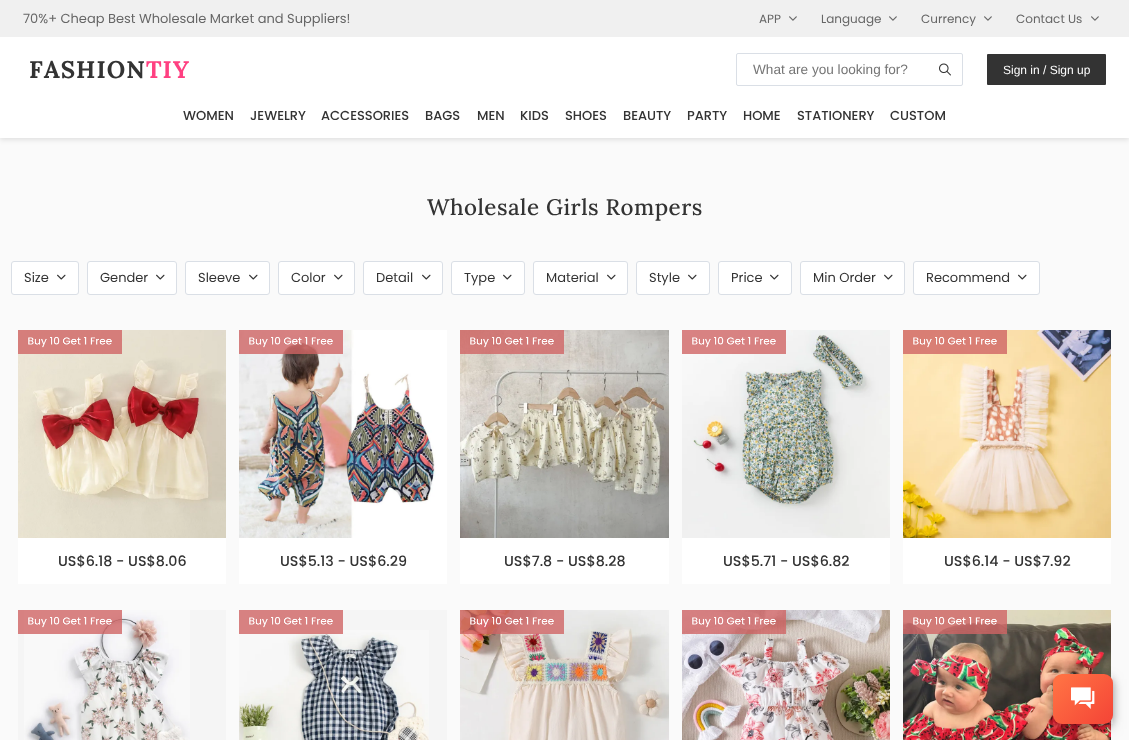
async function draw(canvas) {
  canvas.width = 1129;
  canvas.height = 740;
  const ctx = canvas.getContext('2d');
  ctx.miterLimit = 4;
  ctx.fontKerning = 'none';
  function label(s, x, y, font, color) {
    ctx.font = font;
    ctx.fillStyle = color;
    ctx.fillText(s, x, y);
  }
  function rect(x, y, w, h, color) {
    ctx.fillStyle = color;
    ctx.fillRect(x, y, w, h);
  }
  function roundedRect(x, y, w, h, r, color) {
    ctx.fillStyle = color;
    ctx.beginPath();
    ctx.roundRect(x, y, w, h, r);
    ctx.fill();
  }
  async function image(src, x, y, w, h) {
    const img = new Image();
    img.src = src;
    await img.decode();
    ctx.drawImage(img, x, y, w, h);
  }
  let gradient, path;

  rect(0, 0, 1129, 740, '#fafafa');
  ctx.fillStyle = '#0000001a';
  ctx.filter = 'blur(2.5px)';
  ctx.beginPath();
  ctx.rect(0, 2, 1129, 138);
  ctx.fill();
  ctx.filter = 'none';
  rect(0, 37, 1129, 101, '#fff');
  rect(0, 0, 1129, 37, '#f0f0f0');
  label('70%+ Cheap Best Wholesale Market and Suppliers!', 23, 23, '13px Poppins', '#666');
  label('APP', 759, 23, '12px Poppins', '#666');
  await image('assets/img1.png', 789, 16, 8, 5);
  label('Language', 821, 23, '12px Poppins', '#666');
  await image('assets/img1.png', 889, 16, 8, 5);
  label('Currency', 921, 23, '12px Poppins', '#666');
  await image('assets/img1.png', 984, 16, 8, 5);
  label('Contact Us', 1016, 23, '12px Poppins', '#666');
  await image('assets/img1.png', 1091, 16, 8, 5);
  ctx.letterSpacing = '1px';
  label('FASHION', 29, 78, 'bold 24px Lora', '#333');
  label('TIY', 146, 78, 'bold 24px Lora', '#ff4081');
  ctx.beginPath();
  ctx.roundRect(736.5, 53.5, 226, 32, 1.5);
  ctx.strokeStyle = '#dadfe6';
  ctx.stroke();
  ctx.letterSpacing = '0px';
  label('What are you looking for?', 753, 74, '13.6px Liberation Sans', '#757575');
  await image('assets/img2.png', 939, 63, 12, 13);
  roundedRect(987, 54, 119, 31, 1, '#333');
  label('Sign in / Sign up', 1003, 74, '12px Liberation Sans', '#fff');
  label('WOMEN', 183, 120, '500 13px Poppins', '#333');
  label('JEWELRY', 250, 120, '500 13px Poppins', '#333');
  label('ACCESSORIES', 321, 120, '500 13px Poppins', '#333');
  label('BAGS', 425, 120, '500 13px Poppins', '#333');
  label('MEN', 477, 120, '500 13px Poppins', '#333');
  label('KIDS', 520, 120, '500 13px Poppins', '#333');
  label('SHOES', 565, 120, '500 13px Poppins', '#333');
  label('BEAUTY', 623, 120, '500 13px Poppins', '#333');
  label('PARTY', 687, 120, '500 13px Poppins', '#333');
  label('HOME', 743, 120, '500 13px Poppins', '#333');
  label('STATIONERY', 797, 120, '500 13px Poppins', '#333');
  label('CUSTOM', 890, 120, '500 13px Poppins', '#333');
  ctx.letterSpacing = '0.5px';
  label('Wholesale Girls Rompers', 427, 215, '500 22.4px Lora', '#333');
  ctx.fillStyle = '#fff';
  ctx.beginPath();
  ctx.roundRect(11.5, 261.5, 67, 33, 2.5);
  ctx.fill();
  ctx.stroke();
  ctx.letterSpacing = '0px';
  label('Size', 24, 282, '13px Poppins', '#333');
  await image('assets/img3.png', 57, 274, 9, 6);
  ctx.fillStyle = '#fff';
  ctx.beginPath();
  ctx.roundRect(87.5, 261.5, 89, 33, 2.5);
  ctx.fill();
  ctx.stroke();
  label('Gender', 100, 282, '13px Poppins', '#333');
  await image('assets/img3.png', 156, 274, 9, 6);
  ctx.fillStyle = '#fff';
  ctx.beginPath();
  ctx.roundRect(185.5, 261.5, 84, 33, 2.5);
  ctx.fill();
  ctx.stroke();
  label('Sleeve', 198, 282, '13px Poppins', '#333');
  await image('assets/img3.png', 249, 274, 9, 6);
  ctx.fillStyle = '#fff';
  ctx.beginPath();
  ctx.roundRect(278.5, 261.5, 76, 33, 2.5);
  ctx.fill();
  ctx.stroke();
  label('Color', 291, 282, '13px Poppins', '#333');
  await image('assets/img3.png', 334, 274, 9, 6);
  ctx.fillStyle = '#fff';
  ctx.beginPath();
  ctx.roundRect(363.5, 261.5, 79, 33, 2.5);
  ctx.fill();
  ctx.stroke();
  label('Detail', 376, 282, '13px Poppins', '#333');
  await image('assets/img3.png', 422, 274, 9, 6);
  ctx.fillStyle = '#fff';
  ctx.beginPath();
  ctx.roundRect(451.5, 261.5, 73, 33, 2.5);
  ctx.fill();
  ctx.stroke();
  label('Type', 464, 282, '13px Poppins', '#333');
  await image('assets/img3.png', 503, 274, 9, 6);
  ctx.fillStyle = '#fff';
  ctx.beginPath();
  ctx.roundRect(533.5, 261.5, 94, 33, 2.5);
  ctx.fill();
  ctx.stroke();
  label('Material', 546, 282, '13px Poppins', '#333');
  await image('assets/img3.png', 607, 274, 9, 6);
  ctx.fillStyle = '#fff';
  ctx.beginPath();
  ctx.roundRect(636.5, 261.5, 73, 33, 2.5);
  ctx.fill();
  ctx.stroke();
  label('Style', 649, 282, '13px Poppins', '#333');
  await image('assets/img3.png', 688, 274, 9, 6);
  ctx.fillStyle = '#fff';
  ctx.beginPath();
  ctx.roundRect(718.5, 261.5, 73, 33, 2.5);
  ctx.fill();
  ctx.stroke();
  label('Price', 731, 282, '13px Poppins', '#333');
  await image('assets/img3.png', 770, 274, 9, 6);
  ctx.fillStyle = '#fff';
  ctx.beginPath();
  ctx.roundRect(800.5, 261.5, 104, 33, 2.5);
  ctx.fill();
  ctx.stroke();
  label('Min Order', 813, 282, '13px Poppins', '#333');
  await image('assets/img3.png', 884, 274, 9, 6);
  ctx.fillStyle = '#fff';
  ctx.beginPath();
  ctx.roundRect(913.5, 261.5, 126, 33, 2.5);
  ctx.fill();
  ctx.stroke();
  label('Recommend', 926, 282, '13px Poppins', '#333');
  await image('assets/img3.png', 1018, 274, 9, 6);
  rect(18, 538, 208, 46, '#fff');
  await image('assets/img4.png', 18, 330, 208, 208);
  await image('assets/img5.png', 18, 330, 104, 24);
  label('US$6.18 - US$8.06', 58, 566, '500 14.25px Poppins', '#333');
  rect(239, 538, 208, 46, '#fff');
  await image('assets/img6.png', 239, 330, 208, 208);
  await image('assets/img7.png', 239, 330, 104, 24);
  label('US$5.13 - US$6.29', 280, 566, '500 14.25px Poppins', '#333');
  rect(460, 538, 209, 46, '#fff');
  await image('assets/img8.png', 460, 330, 209, 208);
  await image('assets/img9.png', 460, 330, 104, 24);
  label('US$7.8 - US$8.28', 504, 566, '500 14.25px Poppins', '#333');
  rect(682, 538, 208, 46, '#fff');
  await image('assets/img10.png', 682, 330, 208, 208);
  await image('assets/img11.png', 682, 330, 104, 24);
  label('US$5.71 - US$6.82', 723, 566, '500 14.25px Poppins', '#333');
  rect(903, 538, 208, 46, '#fff');
  await image('assets/img12.png', 903, 330, 208, 208);
  await image('assets/img13.png', 903, 330, 104, 24);
  label('US$6.14 - US$7.92', 944, 566, '500 14.25px Poppins', '#333');
  rect(18, 610, 208, 130, '#f5f5f5');
  await image('assets/img14.png', 24, 610, 166, 130);
  await image('assets/img15.png', 18, 610, 104, 24);
  rect(239, 610, 208, 130, '#f5f5f5');
  await image('assets/img16.png', 239, 630, 190, 110);
  await image('assets/img17.png', 239, 610, 104, 24);
  await image('assets/img18.png', 460, 610, 209, 130);
  await image('assets/img19.png', 460, 610, 104, 24);
  await image('assets/img20.png', 682, 610, 208, 130);
  await image('assets/img21.png', 682, 610, 104, 24);
  await image('assets/img22.png', 903, 610, 208, 130);
  await image('assets/img23.png', 903, 610, 104, 24);
  ctx.save();
  path = new Path2D('M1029 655H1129V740H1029ZM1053 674H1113V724H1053Z');
  ctx.clip(path, 'evenodd');
  ctx.fillStyle = '#0000001a';
  ctx.filter = 'blur(7.5px)';
  ctx.beginPath();
  ctx.rect(1053, 679, 60, 50);
  ctx.fill();
  ctx.filter = 'none';
  ctx.restore();
  ctx.fillStyle = '#0000003d';
  ctx.filter = 'blur(4.5px)';
  ctx.beginPath();
  ctx.roundRect(1053, 677, 60, 50, 9);
  ctx.fill();
  ctx.filter = 'none';
  ctx.fillStyle = '#0000001f';
  ctx.filter = 'blur(4.5px)';
  ctx.beginPath();
  ctx.roundRect(1053, 677, 60, 50, 9);
  ctx.fill();
  ctx.filter = 'none';
  gradient = ctx.createLinearGradient(1056, 672, 1111, 727);
  gradient.addColorStop(0.1, '#ff7043');
  gradient.addColorStop(1, '#f44336');
  ctx.fillStyle = gradient;
  ctx.beginPath();
  ctx.roundRect(1053, 674, 60, 50, 9);
  ctx.fill();
  await image('assets/img24.png', 1071, 687, 24, 22);
}

draw(document.querySelector('canvas'));
